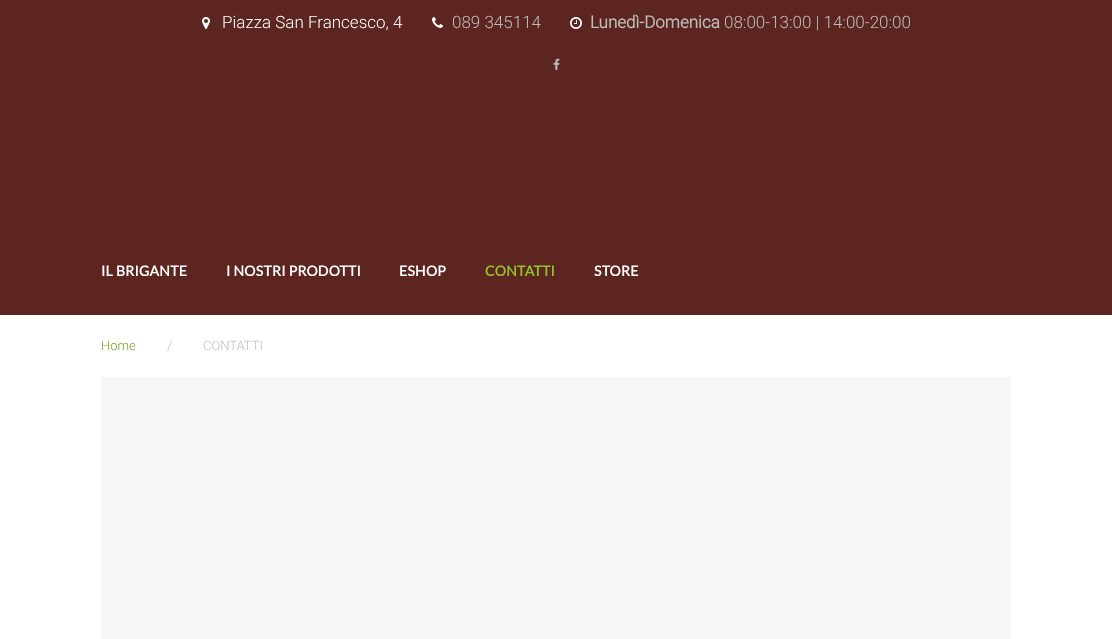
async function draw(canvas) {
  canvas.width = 1112;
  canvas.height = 639;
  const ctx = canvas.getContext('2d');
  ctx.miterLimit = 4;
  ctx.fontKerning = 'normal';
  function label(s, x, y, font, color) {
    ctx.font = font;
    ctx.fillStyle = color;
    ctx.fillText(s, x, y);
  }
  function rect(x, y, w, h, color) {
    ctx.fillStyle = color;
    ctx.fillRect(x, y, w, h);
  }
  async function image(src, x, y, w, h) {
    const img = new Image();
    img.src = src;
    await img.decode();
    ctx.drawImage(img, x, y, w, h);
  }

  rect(0, 0, 1112, 639, '#fff');
  rect(0, 0, 1112, 315, '#5d251f');
  await image('assets/img1.png', 202, 17, 8, 12);
  label('Piazza San Francesco, 4', 222, 28, '300 17px Roboto', '#fff');
  await image('assets/img2.png', 432, 17, 11, 11);
  label('089 345114', 452, 28, '300 17px Roboto', '#bdbdbd');
  await image('assets/img3.png', 570, 17, 12, 12);
  label('Lunedì-Domenica', 590, 28, 'bold 17px Roboto', '#bdbdbd');
  label('08:00-13:00 | 14:00-20:00', 724, 28, '300 17px Roboto', '#bdbdbd');
  await image('assets/img4.png', 553, 58, 7, 12);
  ctx.letterSpacing = '0.25px';
  label('IL BRIGANTE', 101, 276, 'bold 14px Lato', '#fff');
  label('I NOSTRI PRODOTTI', 226, 276, 'bold 14px Lato', '#fff');
  label('ESHOP', 399, 276, 'bold 14px Lato', '#fff');
  label('CONTATTI', 485, 276, 'bold 14px Lato', '#95c12b');
  label('STORE', 594, 276, 'bold 14px Lato', '#fff');
  ctx.letterSpacing = '0px';
  label('Home', 101, 350, '300 13px Roboto', '#74a426');
  label('/', 167, 350, '300 13px Roboto', '#bdbdbd');
  label('CONTATTI', 203, 350, '300 13px Roboto', '#bdbdbd');
  rect(101, 377, 910, 262, '#f7f7f7');
}

draw(document.querySelector('canvas'));
